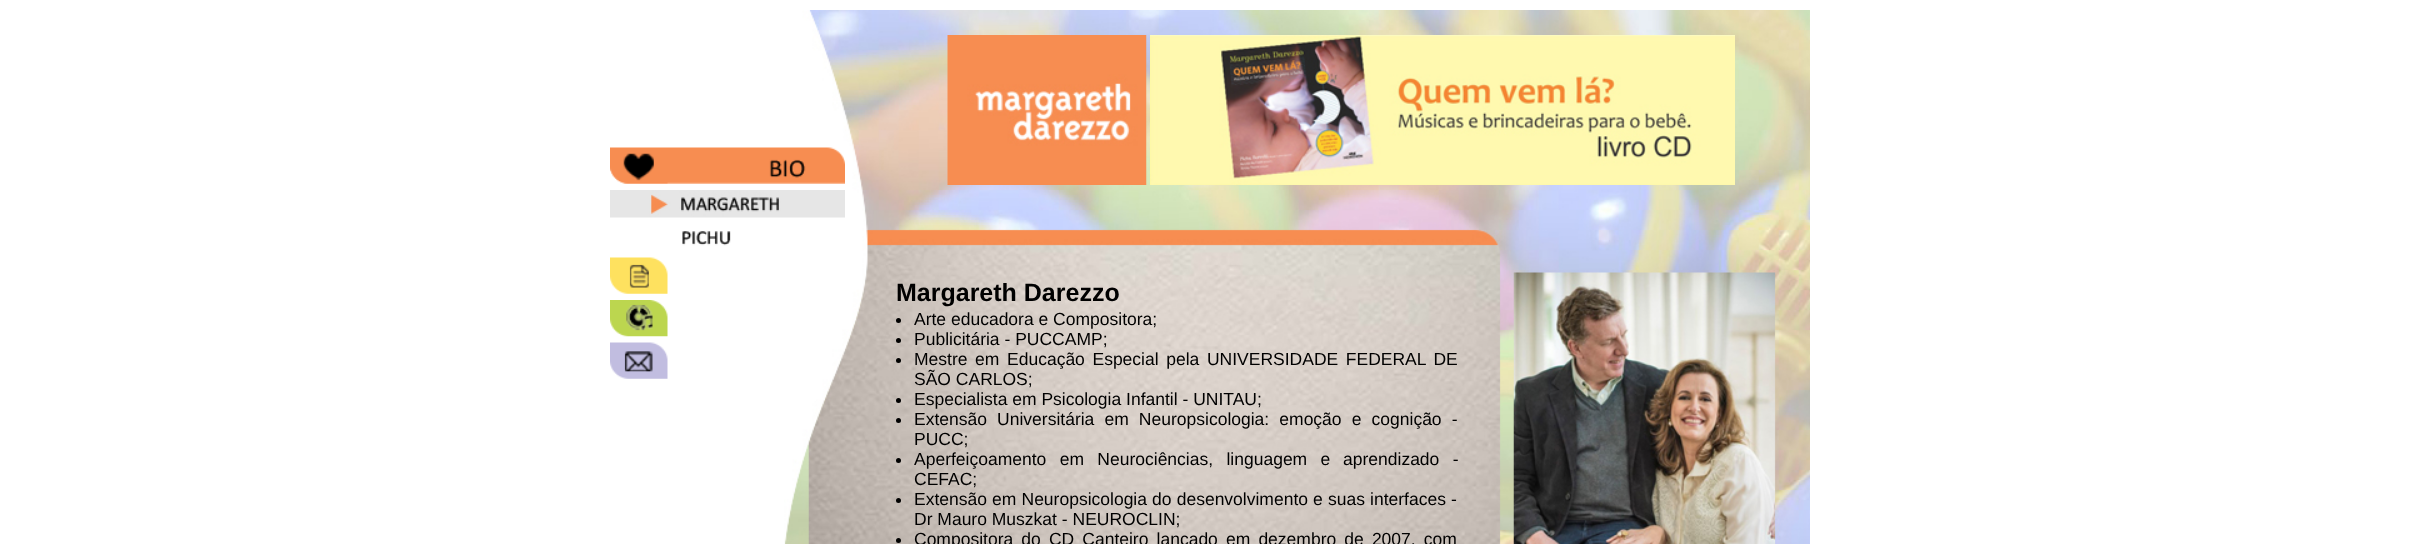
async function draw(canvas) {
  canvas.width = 2418;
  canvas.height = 544;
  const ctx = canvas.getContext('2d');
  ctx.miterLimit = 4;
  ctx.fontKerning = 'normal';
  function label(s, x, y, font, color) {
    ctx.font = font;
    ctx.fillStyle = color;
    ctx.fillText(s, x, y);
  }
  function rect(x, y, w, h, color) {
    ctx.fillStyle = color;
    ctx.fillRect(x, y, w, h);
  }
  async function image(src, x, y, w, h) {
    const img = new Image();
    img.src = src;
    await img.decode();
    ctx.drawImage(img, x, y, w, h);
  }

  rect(0, 0, 2418, 544, '#fff');
  await image('assets/img1.png', 784, 10, 1026, 534);
  await image('assets/img2.png', 610, 147, 235, 37);
  await image('assets/img3.png', 610, 190, 235, 28);
  await image('assets/img4.png', 682, 231, 49, 15);
  await image('assets/img5.png', 610, 257, 58, 37);
  await image('assets/img6.png', 610, 300, 58, 37);
  await image('assets/img7.png', 610, 342, 58, 37);
  await image('assets/img8.png', 947, 35, 200, 150);
  await image('assets/img9.png', 1150, 35, 585, 150);
  label('Margareth Darezzo', 896, 301, 'bold 25px Liberation Sans', '#000');
  ctx.beginPath();
  ctx.arc(898.5, 320.5, 2.5, 0, 2 * Math.PI);
  ctx.fill();
  label('Arte educadora e Compositora;', 914, 325, '17.5px Liberation Sans', '#000');
  ctx.beginPath();
  ctx.arc(898.5, 340.5, 2.5, 0, 2 * Math.PI);
  ctx.fill();
  label('Publicitária - PUCCAMP;', 914, 345, '17.5px Liberation Sans', '#000');
  ctx.beginPath();
  ctx.arc(898.5, 360.5, 2.5, 0, 2 * Math.PI);
  ctx.fill();
  ctx.wordSpacing = '2.75px';
  label('Mestre em Educação Especial pela UNIVERSIDADE FEDERAL DE', 914, 365, '17.5px Liberation Sans', '#000');
  ctx.wordSpacing = '0px';
  label('SÃO CARLOS;', 914, 385, '17.5px Liberation Sans', '#000');
  ctx.beginPath();
  ctx.arc(898.5, 400.5, 2.5, 0, 2 * Math.PI);
  ctx.fill();
  label('Especialista em Psicologia Infantil - UNITAU;', 914, 405, '17.5px Liberation Sans', '#000');
  ctx.beginPath();
  ctx.arc(898.5, 420.5, 2.5, 0, 2 * Math.PI);
  ctx.fill();
  ctx.wordSpacing = '5.25px';
  label('Extensão Universitária em Neuropsicologia: emoção e cognição -', 914, 425, '17.5px Liberation Sans', '#000');
  ctx.wordSpacing = '0px';
  label('PUCC;', 914, 445, '17.5px Liberation Sans', '#000');
  ctx.beginPath();
  ctx.arc(898.5, 460.5, 2.5, 0, 2 * Math.PI);
  ctx.fill();
  ctx.wordSpacing = '8.5px';
  label('Aperfeiçoamento em Neurociências, linguagem e', 914, 465, '17.5px Liberation Sans', '#000');
  label('aprendizado -', 1343, 465, '17.5px Liberation Sans', '#000');
  ctx.wordSpacing = '0px';
  label('CEFAC;', 914, 485, '17.5px Liberation Sans', '#000');
  ctx.beginPath();
  ctx.arc(898.5, 500.5, 2.5, 0, 2 * Math.PI);
  ctx.fill();
  ctx.wordSpacing = '0.25px';
  label('Extensão em Neuropsicologia do desenvolvimento e suas interfaces -', 914, 505, '17.5px Liberation Sans', '#000');
  ctx.wordSpacing = '0px';
  label('Dr Mauro Muszkat - NEUROCLIN;', 914, 525, '17.5px Liberation Sans', '#000');
  ctx.beginPath();
  ctx.arc(898.5, 540.5, 2.5, 0, 2 * Math.PI);
  ctx.fill();
  ctx.wordSpacing = '3.25px';
  label('Compositora do CD Canteiro lançado em dezembro de 2007, com', 914, 545, '17.5px Liberation Sans', '#000');
}

draw(document.querySelector('canvas'));
